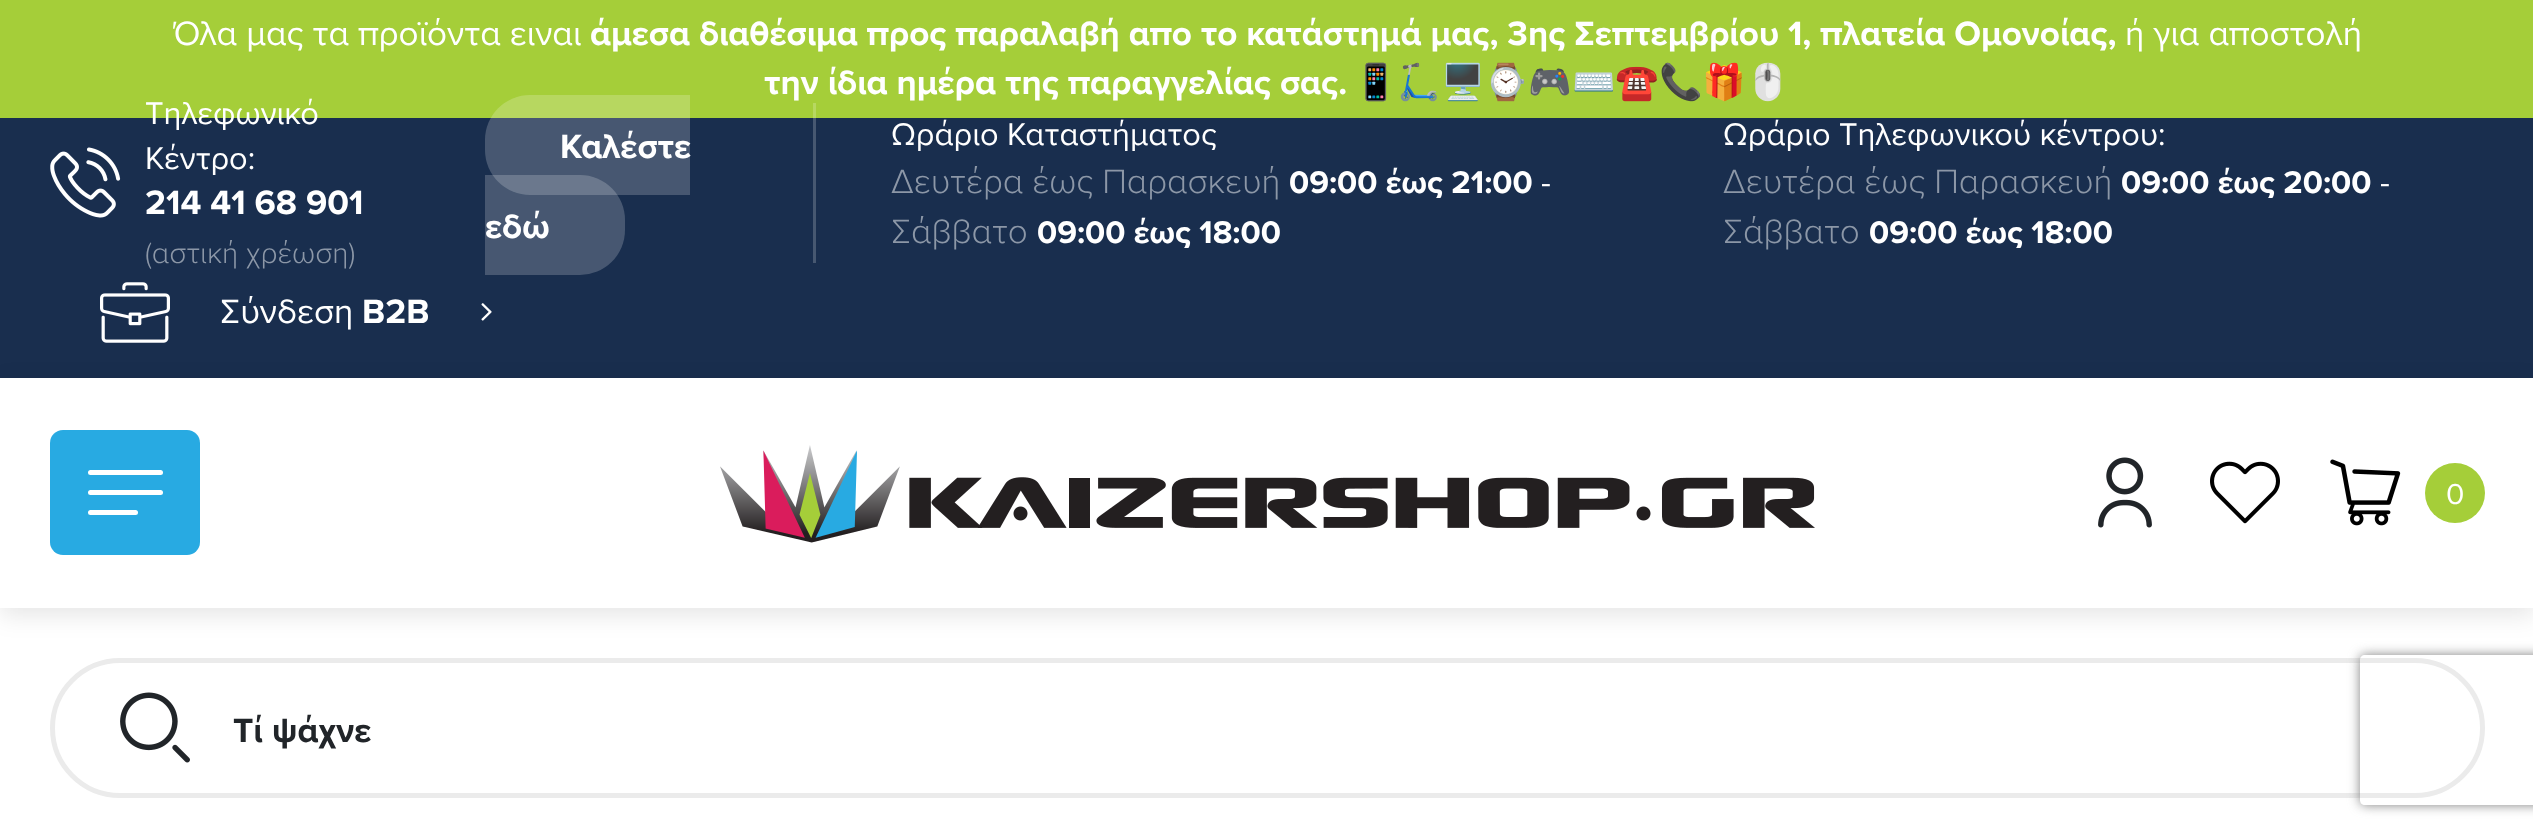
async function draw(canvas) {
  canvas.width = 2533;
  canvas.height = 838;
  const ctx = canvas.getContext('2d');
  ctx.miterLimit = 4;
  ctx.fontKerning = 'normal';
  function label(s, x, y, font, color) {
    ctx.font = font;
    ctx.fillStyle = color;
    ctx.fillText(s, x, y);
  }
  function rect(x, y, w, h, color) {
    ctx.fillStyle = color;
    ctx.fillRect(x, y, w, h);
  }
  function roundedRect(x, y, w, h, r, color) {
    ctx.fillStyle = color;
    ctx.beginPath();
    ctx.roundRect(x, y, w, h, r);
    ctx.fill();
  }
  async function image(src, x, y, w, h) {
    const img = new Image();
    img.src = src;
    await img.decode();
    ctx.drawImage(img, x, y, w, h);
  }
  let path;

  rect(0, 0, 2533, 838, '#fff');
  rect(0, 0, 2533, 118, '#a5ce39');
  rect(813, 103, 3, 15, '#b7d861');
  label('Όλα μας τα προϊόντα ειναι', 173, 45, '35px Proxima Nova', '#fff');
  label('άμεσα διαθέσιμα προς παραλαβή απο το κατάστημά μας, 3ης Σεπτεμβρίου 1, πλατεία Ομονοίας,', 590, 45, 'bold 35px Proxima Nova', '#fff');
  label('ή για αποστολή', 2125, 45, '35px Proxima Nova', '#fff');
  label('την ίδια ημέρα της παραγγελίας σας.', 764, 94, 'bold 35px Proxima Nova', '#fff');
  label('📱🛴🖥⌚️🎮⌨️☎️📞🎁🖱', 1354, 94, '35px Noto Color Emoji', '#fff');
  rect(0, 118, 2533, 260, '#192e4e');
  rect(813, 118, 3, 145, '#475871');
  await image('assets/img1.png', 50, 147, 71, 71);
  label('Τηλεφωνικό', 145, 124, '32.5px Proxima Nova', '#fff');
  label('Κέντρο:', 145, 169, '32.5px Proxima Nova', '#fff');
  label('214 41 68 901', 145, 214, 'bold 35px Proxima Nova', '#fff');
  label('(αστική χρέωση)', 145, 263, '300 30px Proxima Nova', '#8c97a7');
  ctx.fillStyle = '#ffffff33';
  ctx.beginPath();
  ctx.roundRect(485, 95, 205, 100, [45, 0, 0, 45]);
  ctx.fill();
  label('Καλέστε', 560, 158, 'bold 35px Proxima Nova', '#fff');
  ctx.fillStyle = '#ffffff33';
  ctx.beginPath();
  ctx.roundRect(485, 175, 140, 100, [0, 45, 45, 0]);
  ctx.fill();
  label('εδώ', 485, 238, 'bold 35px Proxima Nova', '#fff');
  label('Ωράριο Καταστήματος', 891, 145, '32.5px Proxima Nova', '#fff');
  label('Δευτέρα έως Παρασκευή', 891, 193, '300 35px Proxima Nova', '#8c97a7');
  label('09:00 έως 21:00', 1289, 193, 'bold 32.5px Proxima Nova', '#fff');
  label('-', 1541, 193, '32.5px Proxima Nova', '#fff');
  label('Σάββατο', 891, 243, '300 35px Proxima Nova', '#8c97a7');
  label('09:00 έως 18:00', 1037, 243, 'bold 32.5px Proxima Nova', '#fff');
  label('Ωράριο Τηλεφωνικού κέντρου:', 1723, 145, '32.5px Proxima Nova', '#fff');
  label('Δευτέρα έως Παρασκευή', 1723, 193, '300 35px Proxima Nova', '#8c97a7');
  label('09:00 έως 20:00', 2121, 193, 'bold 32.5px Proxima Nova', '#fff');
  label('-', 2380, 193, '32.5px Proxima Nova', '#fff');
  label('Σάββατο', 1723, 243, '300 35px Proxima Nova', '#8c97a7');
  label('09:00 έως 18:00', 1869, 243, 'bold 32.5px Proxima Nova', '#fff');
  await image('assets/img2.png', 100, 282, 70, 61);
  label('Σύνδεση', 220, 323, '35px Proxima Nova', '#fff');
  label('Β2Β', 362, 323, 'bold 35px Proxima Nova', '#fff');
  await image('assets/img3.png', 481, 303, 11, 18);
  ctx.fillStyle = '#0000001a';
  ctx.filter = 'blur(12.5px)';
  ctx.beginPath();
  ctx.rect(0, 385, 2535, 230);
  ctx.fill();
  ctx.filter = 'none';
  rect(0, 378, 2533, 230, '#fff');
  roundedRect(50, 430, 150, 125, 13, '#28aae2');
  roundedRect(88, 470, 75, 5, 2.5, '#fff');
  roundedRect(88, 490, 75, 5, 2.5, '#fff');
  roundedRect(88, 510, 50, 5, 2.5, '#fff');
  await image('assets/img4.png', 720, 445, 1095, 98);
  await image('assets/img5.png', 2098, 457, 54, 71);
  await image('assets/img6.png', 2210, 461, 70, 63);
  await image('assets/img7.png', 2330, 459, 71, 67);
  ctx.fillStyle = '#a5ce39';
  ctx.beginPath();
  ctx.arc(2455, 493, 30, 0, 2 * Math.PI);
  ctx.fill();
  label('0', 2446, 504, '30px Proxima Nova', '#fff');
  ctx.beginPath();
  ctx.roundRect(52.5, 660.5, 2430, 135, 67.5);
  ctx.strokeStyle = '#ebebeb';
  ctx.lineWidth = 5;
  ctx.stroke();
  await image('assets/img8.png', 120, 692, 70, 71);
  label('Τί ψάχνε', 233, 742, 'bold 35px Proxima Nova', '#212529');
  ctx.save();
  path = new Path2D('M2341 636H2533V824H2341ZM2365 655H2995C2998 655 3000 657 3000 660V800C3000 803 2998 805 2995 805H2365C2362 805 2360 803 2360 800V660C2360 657 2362 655 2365 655Z');
  ctx.clip(path, 'evenodd');
  ctx.fillStyle = '#808080';
  ctx.filter = 'blur(6px)';
  ctx.beginPath();
  ctx.roundRect(2360, 655, 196, 150, 5);
  ctx.fill();
  ctx.filter = 'none';
  ctx.restore();
}

draw(document.querySelector('canvas'));
